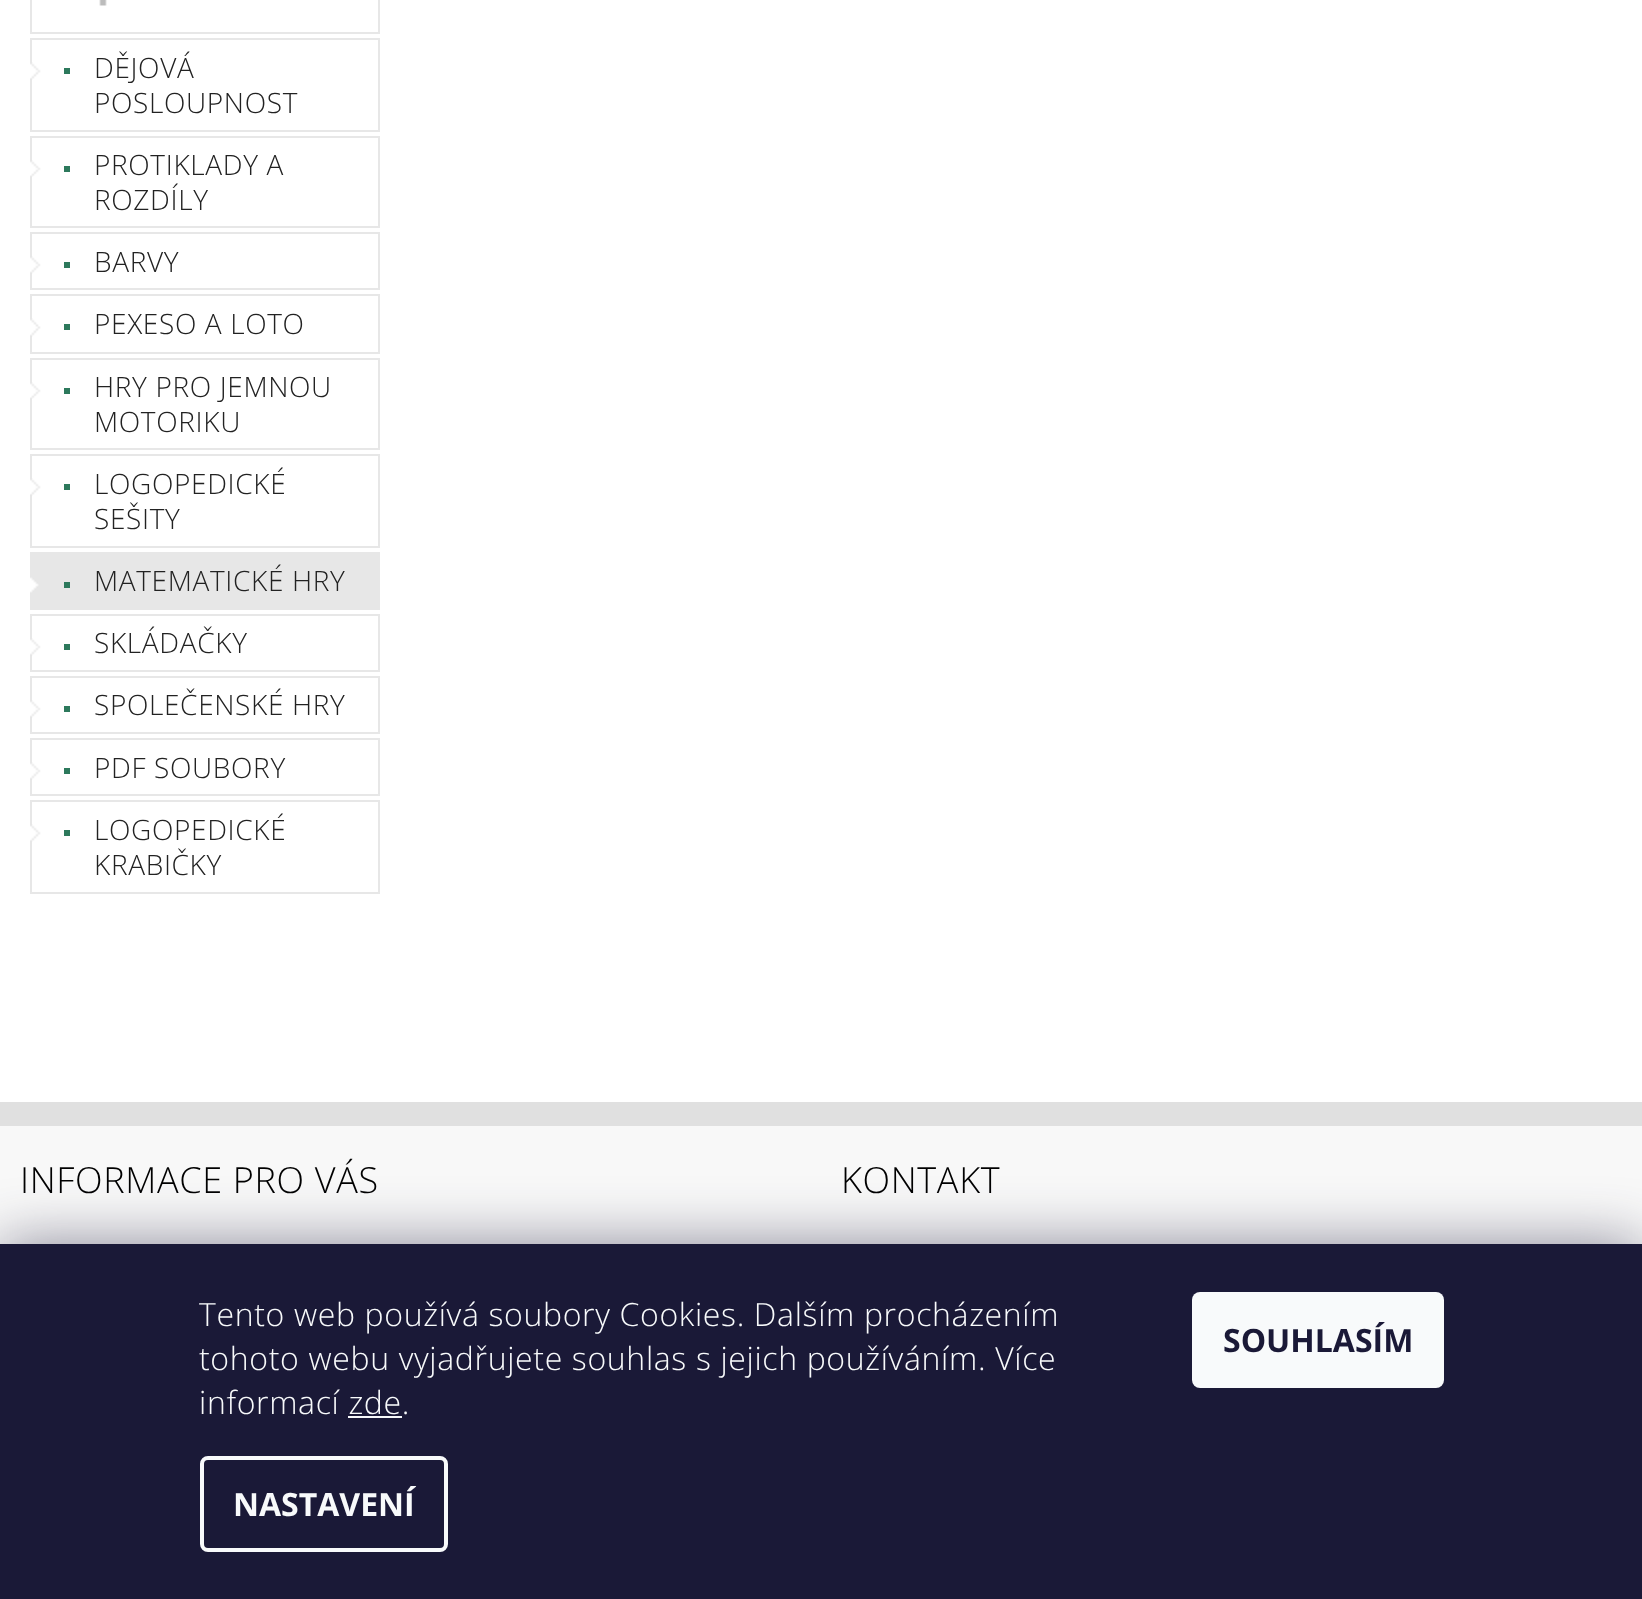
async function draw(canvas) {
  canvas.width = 1642;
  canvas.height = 1599;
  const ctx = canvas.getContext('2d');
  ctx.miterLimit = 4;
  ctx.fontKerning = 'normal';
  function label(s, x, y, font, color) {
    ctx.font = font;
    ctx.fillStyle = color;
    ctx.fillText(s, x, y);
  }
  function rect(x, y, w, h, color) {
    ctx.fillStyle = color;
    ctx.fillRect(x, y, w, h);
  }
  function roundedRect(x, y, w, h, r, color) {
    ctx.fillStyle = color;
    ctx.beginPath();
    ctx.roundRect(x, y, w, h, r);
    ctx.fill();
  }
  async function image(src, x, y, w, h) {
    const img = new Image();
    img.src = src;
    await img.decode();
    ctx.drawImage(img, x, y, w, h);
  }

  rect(0, 0, 1642, 1599, '#fff');
  ctx.strokeStyle = '#e7e7e7';
  ctx.lineWidth = 2;
  ctx.strokeRect(31, -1, 348, 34);
  await image('assets/img1.png', 99, 0, 8, 6);
  ctx.strokeRect(31, 39, 348, 92);
  await image('assets/img2.png', 30, 62, 11, 18);
  rect(64, 68, 6, 6, '#2d795c');
  ctx.letterSpacing = '0.65px';
  label('DĚJOVÁ', 94, 78, '300 28px Open Sans', '#222');
  label('POSLOUPNOST', 94, 113, '300 28px Open Sans', '#222');
  ctx.strokeRect(31, 137, 348, 90);
  await image('assets/img3.png', 30, 160, 11, 17);
  rect(64, 166, 6, 6, '#2d795c');
  label('PROTIKLADY A', 94, 175, '300 28px Open Sans', '#222');
  label('ROZDÍLY', 94, 210, '300 28px Open Sans', '#222');
  ctx.strokeRect(31, 233, 348, 56);
  await image('assets/img4.png', 30, 256, 11, 18);
  rect(64, 262, 6, 6, '#2d795c');
  label('BARVY', 94, 272, '300 28px Open Sans', '#222');
  ctx.strokeRect(31, 295, 348, 58);
  await image('assets/img5.png', 30, 318, 11, 19);
  rect(64, 324, 6, 6, '#2d795c');
  label('PEXESO A LOTO', 94, 334, '300 28px Open Sans', '#222');
  ctx.strokeRect(31, 359, 348, 90);
  await image('assets/img3.png', 30, 382, 11, 17);
  rect(64, 388, 6, 6, '#2d795c');
  label('HRY PRO JEMNOU', 94, 397, '300 28px Open Sans', '#222');
  label('MOTORIKU', 94, 432, '300 28px Open Sans', '#222');
  ctx.strokeRect(31, 455, 348, 92);
  await image('assets/img2.png', 30, 478, 11, 18);
  rect(64, 484, 6, 6, '#2d795c');
  label('LOGOPEDICKÉ', 94, 494, '300 28px Open Sans', '#222');
  label('SEŠITY', 94, 529, '300 28px Open Sans', '#222');
  ctx.strokeRect(31, 553, 348, 56);
  rect(32, 554, 346, 54, '#e7e7e7');
  await image('assets/img6.png', 30, 577, 9, 16);
  rect(64, 582, 6, 6, '#2d795c');
  label('MATEMATICKÉ HRY', 94, 591, '300 28px Open Sans', '#222');
  ctx.strokeRect(31, 615, 348, 56);
  await image('assets/img4.png', 30, 638, 11, 18);
  rect(64, 644, 6, 6, '#2d795c');
  label('SKLÁDAČKY', 94, 653, '300 28px Open Sans', '#222');
  ctx.strokeRect(31, 677, 348, 56);
  await image('assets/img4.png', 30, 700, 11, 18);
  rect(64, 706, 6, 6, '#2d795c');
  label('SPOLEČENSKÉ HRY', 94, 715, '300 28px Open Sans', '#222');
  ctx.strokeRect(31, 739, 348, 56);
  await image('assets/img4.png', 30, 762, 11, 18);
  rect(64, 768, 6, 6, '#2d795c');
  label('PDF SOUBORY', 94, 778, '300 28px Open Sans', '#222');
  ctx.strokeRect(31, 801, 348, 92);
  await image('assets/img2.png', 30, 824, 11, 18);
  rect(64, 830, 6, 6, '#2d795c');
  label('LOGOPEDICKÉ', 94, 840, '300 28px Open Sans', '#222');
  label('KRABIČKY', 94, 875, '300 28px Open Sans', '#222');
  rect(0, 1126, 1642, 118, '#f8f8f8');
  rect(0, 1102, 1642, 24, '#e0e0e0');
  label('INFORMACE PRO VÁS', 20, 1193, '300 36px Open Sans', '#000');
  label('KONTAKT', 841, 1193, '300 36px Open Sans', '#000');
  ctx.fillStyle = '#1b193980';
  ctx.filter = 'blur(30px)';
  ctx.beginPath();
  ctx.rect(0, 1244, 1642, 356);
  ctx.fill();
  ctx.filter = 'none';
  rect(0, 1244, 1642, 355, '#1a1937');
  label('Tento web používá soubory Cookies. Dalším procházením', 199, 1326, '300 32px Open Sans', '#f8fafb');
  label('tohoto webu vyjadřujete souhlas s jejich používáním. Více', 199, 1370, '300 32px Open Sans', '#f8fafb');
  label('informací zde.', 199, 1414, '300 32px Open Sans', '#f8fafb');
  rect(348, 1416, 54, 2, '#f8fafb');
  ctx.beginPath();
  ctx.roundRect(202, 1458, 244, 92, 6);
  ctx.strokeStyle = '#f8fafb';
  ctx.lineWidth = 4;
  ctx.stroke();
  ctx.letterSpacing = '0px';
  label('NASTAVENÍ', 233, 1516, 'bold 32px Open Sans', '#f8fafb');
  roundedRect(1192, 1292, 252, 96, 8, '#f8fafb');
  label('SOUHLASÍM', 1223, 1352, 'bold 32px Open Sans', '#1a1937');
}

draw(document.querySelector('canvas'));
